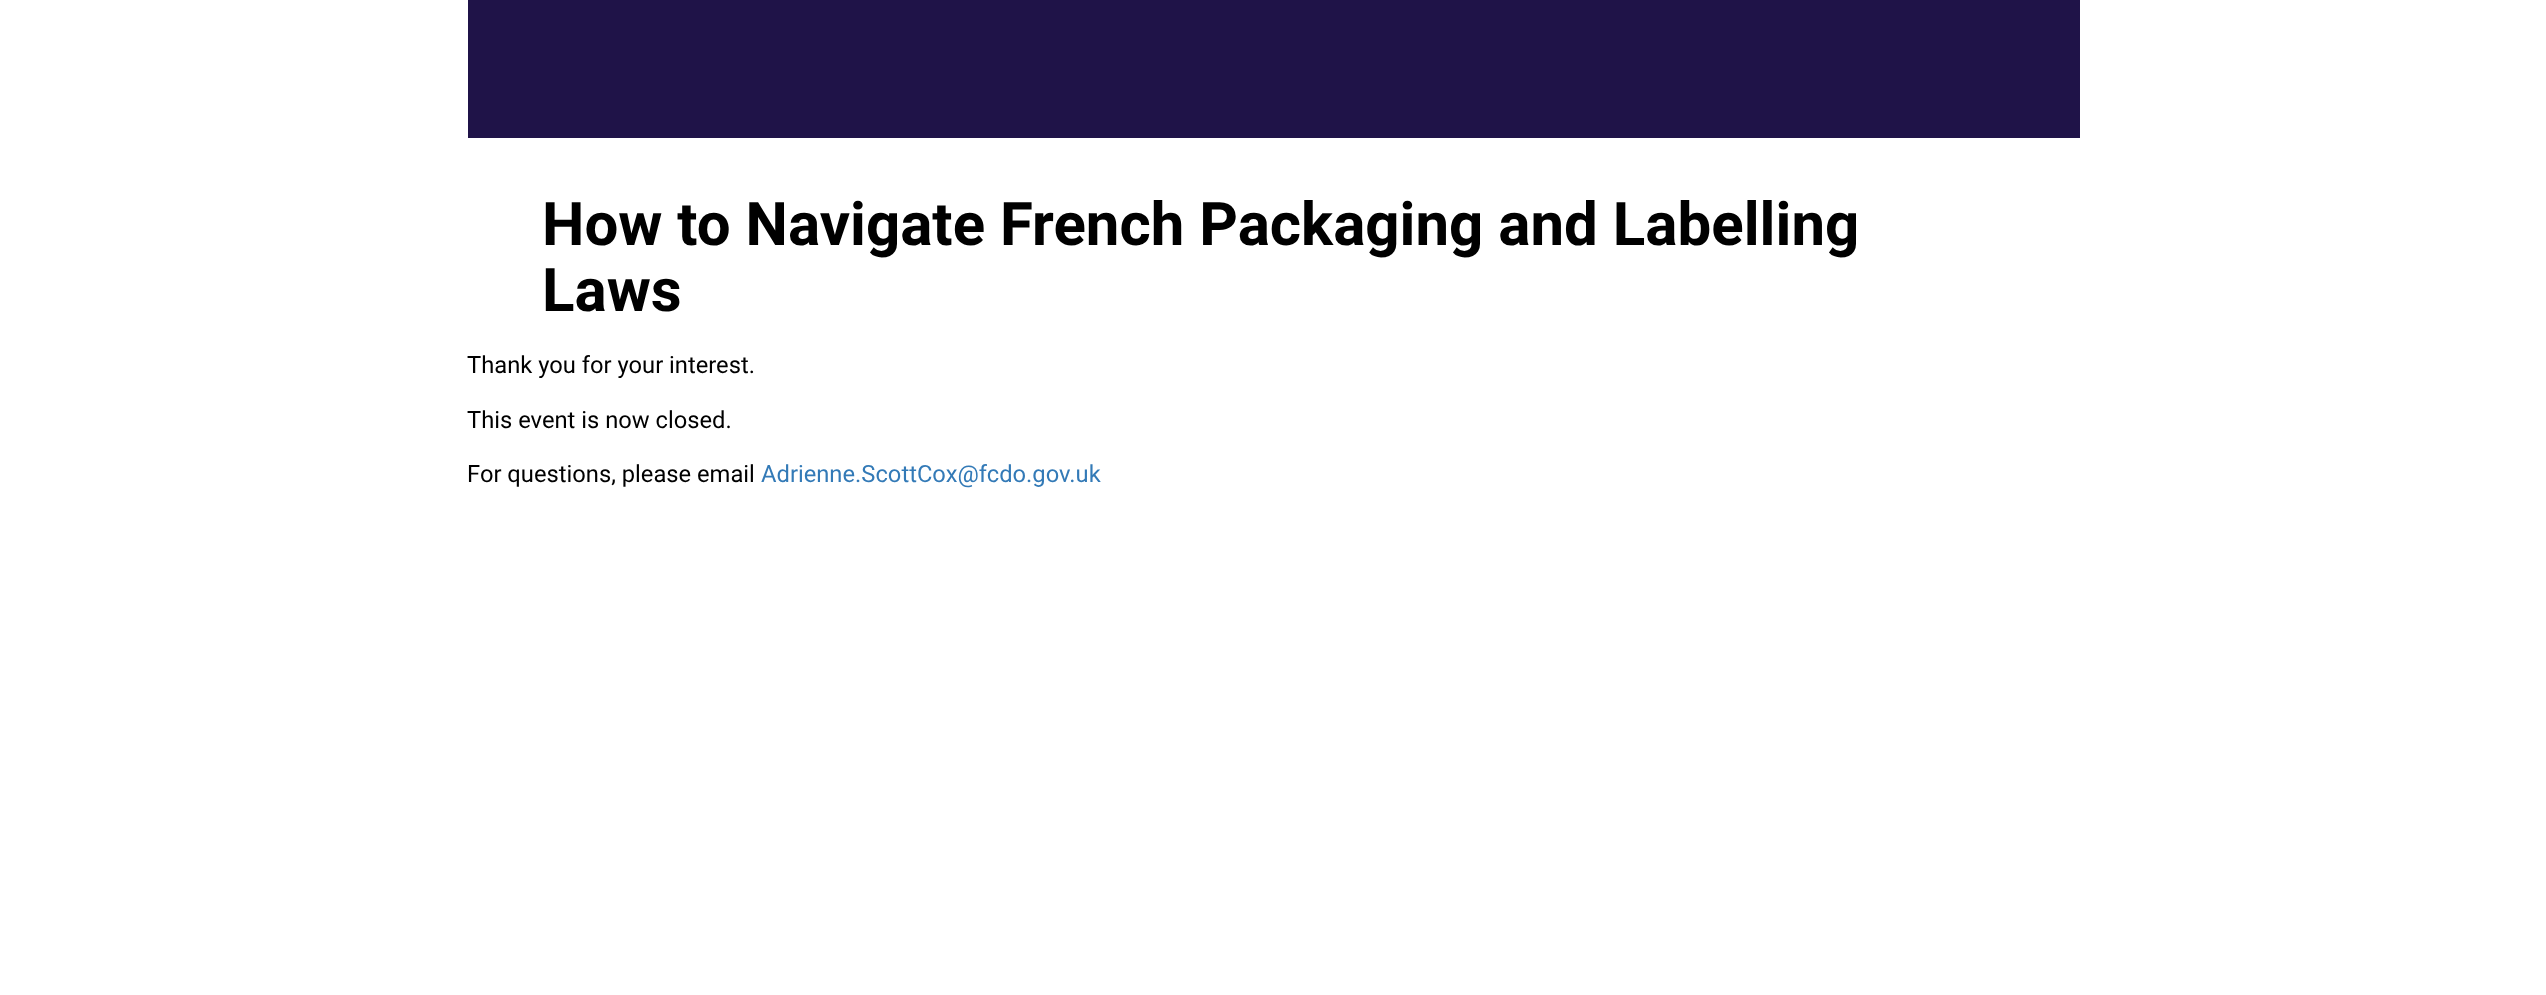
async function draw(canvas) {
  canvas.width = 2546;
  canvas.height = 995;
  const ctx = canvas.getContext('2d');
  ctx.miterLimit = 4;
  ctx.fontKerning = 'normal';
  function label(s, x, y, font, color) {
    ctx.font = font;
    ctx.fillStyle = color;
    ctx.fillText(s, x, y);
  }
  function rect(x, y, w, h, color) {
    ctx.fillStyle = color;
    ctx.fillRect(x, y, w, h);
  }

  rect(0, 0, 2546, 995, '#fff');
  rect(468, 0, 1612, 138, '#1f1348');
  label('How to Navigate French Packaging and Labelling', 542, 245, 'bold 60px Roboto', '#000');
  label('Laws', 542, 311, 'bold 60px Roboto', '#000');
  label('Thank you for your interest.', 467, 373, '23.75px Roboto', '#000');
  label('This event is now closed.', 467, 428, '23.75px Roboto', '#000');
  label('For questions, please email', 467, 482, '23.75px Roboto', '#000');
  label('Adrienne.ScottCox@fcdo.gov.uk', 761, 482, '23.75px Roboto', '#337ab7');
}

draw(document.querySelector('canvas'));
